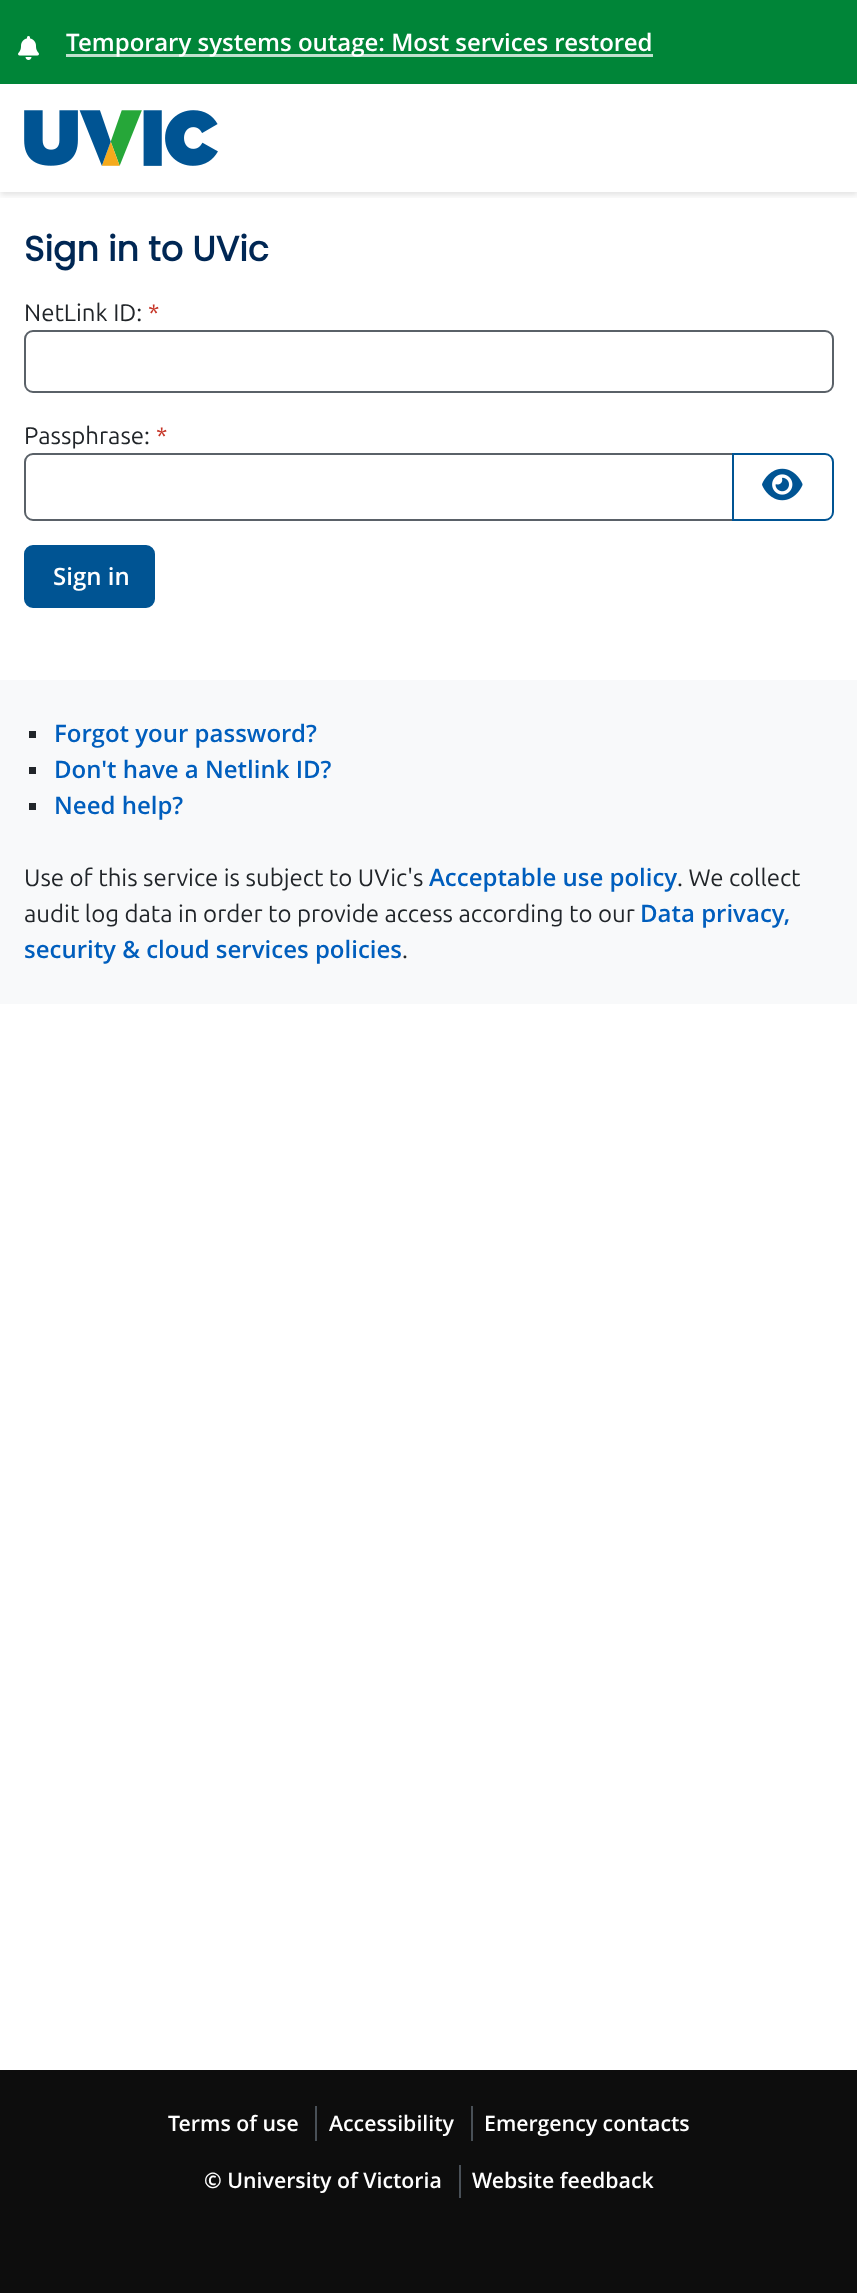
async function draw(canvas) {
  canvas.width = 857;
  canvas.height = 2293;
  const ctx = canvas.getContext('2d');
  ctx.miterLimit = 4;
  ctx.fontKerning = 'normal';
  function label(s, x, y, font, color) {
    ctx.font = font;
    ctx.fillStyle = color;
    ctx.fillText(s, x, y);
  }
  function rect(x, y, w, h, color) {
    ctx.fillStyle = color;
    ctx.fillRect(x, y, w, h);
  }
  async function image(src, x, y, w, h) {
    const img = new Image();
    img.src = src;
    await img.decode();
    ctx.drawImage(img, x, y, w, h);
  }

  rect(0, 0, 857, 2293, '#fff');
  ctx.save();
  ctx.beginPath();
  ctx.rect(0, 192, 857, 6);
  ctx.clip();
  ctx.fillStyle = '#0d0d0d1f';
  ctx.filter = 'blur(3px)';
  ctx.beginPath();
  ctx.rect(0, 3, 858, 192);
  ctx.fill();
  ctx.filter = 'none';
  ctx.restore();
  rect(0, 0, 857, 84, '#008538');
  await image('assets/img1.png', 18, 36, 21, 24);
  rect(66, 54, 587, 3, '#bfe1cd');
  label('Temporary systems outage: Most services restored', 66, 51, '600 24px Open Sans', '#fff');
  await image('assets/img2.png', 24, 110, 194, 56);
  label('Sign in to UVic', 24, 261, 'bold 34.75px Poppins', '#002754');
  label('NetLink ID:', 24, 321, '24px Ubuntu', '#212529');
  label('*', 148, 321, '24px Ubuntu', '#c63527');
  ctx.beginPath();
  ctx.roundRect(25, 331, 808, 61, 8);
  ctx.strokeStyle = '#5a6168';
  ctx.lineWidth = 2;
  ctx.stroke();
  label('Passphrase:', 24, 444, '24px Ubuntu', '#212529');
  label('*', 156, 444, '24px Ubuntu', '#c63527');
  ctx.beginPath();
  ctx.roundRect(25, 454, 708, 66, [8, 0, 0, 8]);
  ctx.stroke();
  ctx.fillStyle = '#fff';
  ctx.beginPath();
  ctx.roundRect(733, 454, 100, 66, [0, 8, 8, 0]);
  ctx.fill();
  ctx.strokeStyle = '#005493';
  ctx.stroke();
  await image('assets/img3.png', 762, 468, 41, 33);
  ctx.fillStyle = '#005493';
  ctx.beginPath();
  ctx.roundRect(25, 546, 129, 61, 8);
  ctx.fill();
  ctx.stroke();
  label('Sign in', 53, 585, '600 24px Open Sans', '#fff');
  rect(0, 680, 857, 324, '#f8f9fa');
  rect(29, 731, 7, 7, '#212529');
  label('Forgot your password?', 54, 742, '600 24px Open Sans', '#005ebd');
  rect(29, 767, 7, 7, '#212529');
  label('Don\'t have a Netlink ID?', 54, 778, '600 24px Open Sans', '#005ebd');
  rect(29, 803, 7, 7, '#212529');
  label('Need help?', 54, 814, '600 24px Open Sans', '#005ebd');
  label('Use of this service is subject to UVic\'s', 24, 886, '24px Ubuntu', '#212529');
  label('Acceptable use policy', 429, 886, '600 24px Open Sans', '#005ebd');
  label('. We collect', 677, 886, '24px Ubuntu', '#212529');
  label('audit log data in order to provide access according to our', 24, 922, '24px Ubuntu', '#212529');
  label('Data privacy,', 640, 922, '600 24px Open Sans', '#005ebd');
  label('security & cloud services policies', 24, 958, '600 24px Open Sans', '#005ebd');
  label('.', 402, 958, '24px Ubuntu', '#212529');
  rect(0, 2070, 857, 223, '#0d0d0d');
  label('Terms of use', 168, 2131, '600 21.3px Open Sans', '#fff');
  rect(315, 2106, 2, 35, '#495057');
  label('Accessibility', 329, 2131, '600 21.3px Open Sans', '#fff');
  rect(471, 2106, 2, 35, '#495057');
  label('Emergency contacts', 484, 2131, '600 21.3px Open Sans', '#fff');
  label('© University of Victoria', 204, 2188, '600 21.3px Open Sans', '#fff');
  rect(459, 2165, 2, 33, '#495057');
  label('Website feedback', 472, 2188, '600 21.3px Open Sans', '#fff');
}

draw(document.querySelector('canvas'));
